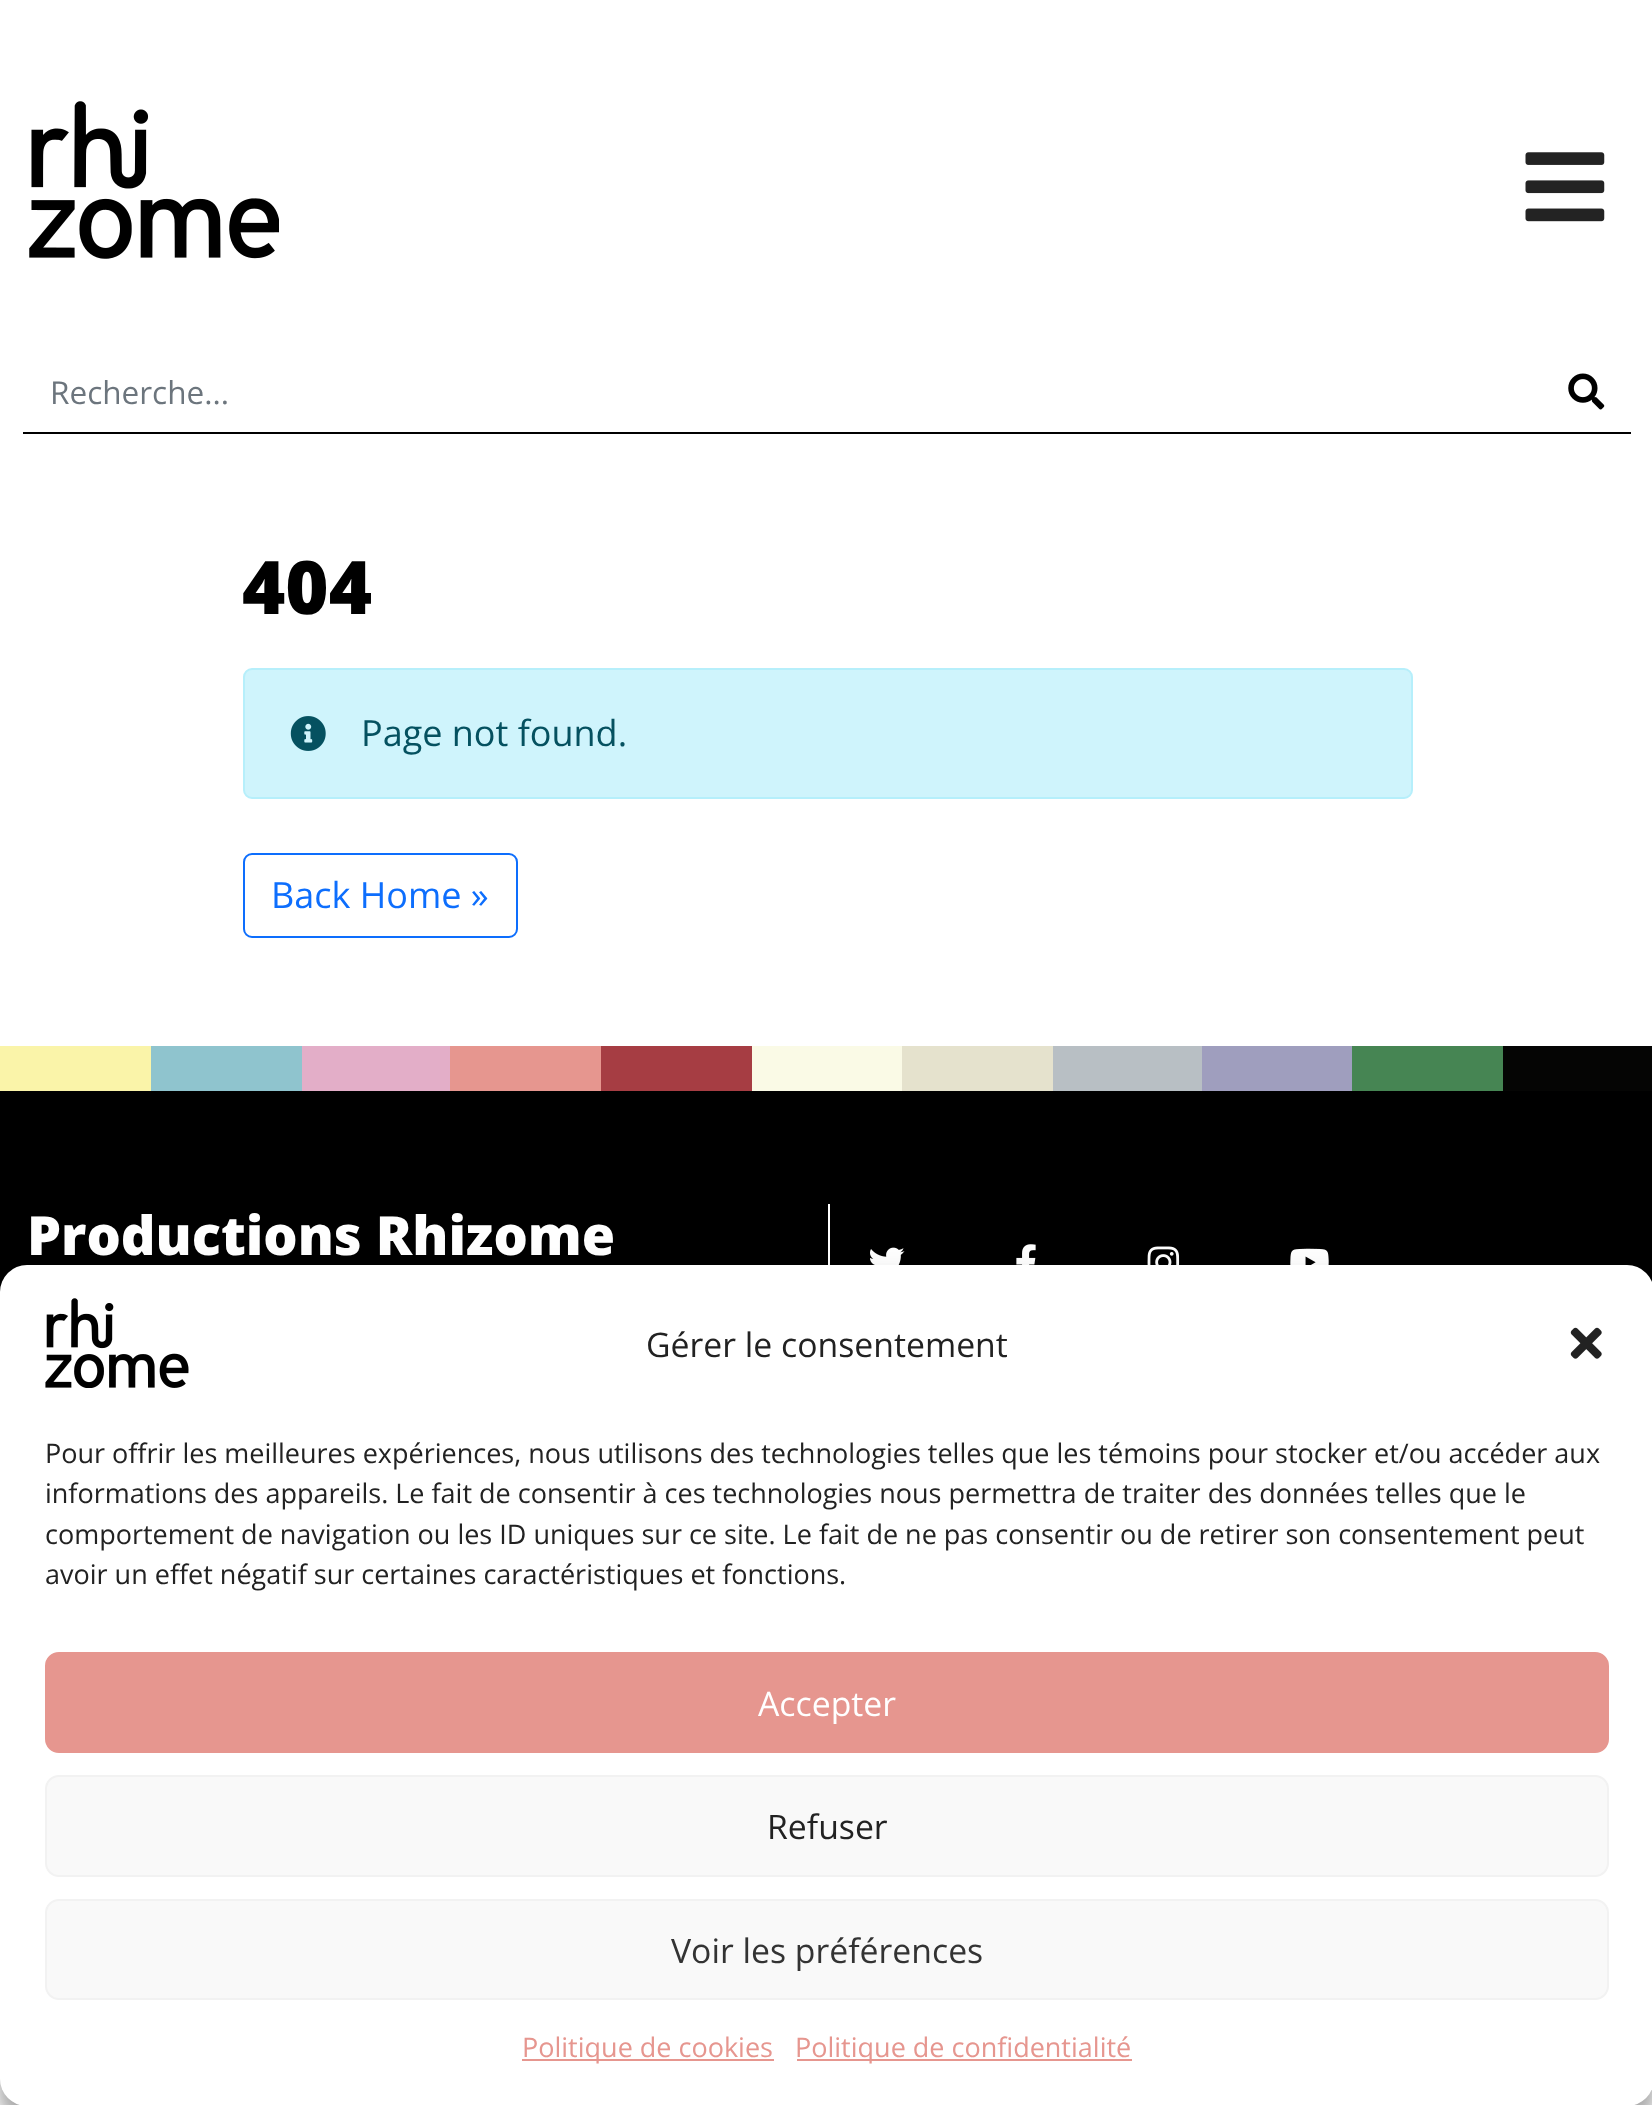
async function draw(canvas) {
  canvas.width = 1652;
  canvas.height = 2105;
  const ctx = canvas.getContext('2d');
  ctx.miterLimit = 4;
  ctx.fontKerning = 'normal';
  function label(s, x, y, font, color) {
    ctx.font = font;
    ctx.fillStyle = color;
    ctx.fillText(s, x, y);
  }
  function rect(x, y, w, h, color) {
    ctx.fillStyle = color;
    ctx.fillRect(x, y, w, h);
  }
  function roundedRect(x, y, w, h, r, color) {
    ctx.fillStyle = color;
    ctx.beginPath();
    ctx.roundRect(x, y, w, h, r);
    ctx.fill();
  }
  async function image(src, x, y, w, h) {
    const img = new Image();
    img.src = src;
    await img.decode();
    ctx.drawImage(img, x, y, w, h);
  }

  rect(0, 0, 1652, 2105, '#fff');
  await image('assets/img1.png', 29, 101, 250, 158);
  await image('assets/img2.png', 1525, 152, 80, 70);
  rect(23, 432, 1608, 2, '#000');
  label('Recherche...', 50, 404, '31.5px Open Sans', '#6c757d');
  await image('assets/img3.png', 1568, 373, 37, 37);
  label('404', 242, 614, '800 74px Open Sans', '#000');
  ctx.fillStyle = '#cff4fc';
  ctx.beginPath();
  ctx.roundRect(244, 669, 1168, 129, 8);
  ctx.fill();
  ctx.strokeStyle = '#b6effb';
  ctx.lineWidth = 2;
  ctx.stroke();
  await image('assets/img4.png', 290, 716, 36, 35);
  label('Page not found.', 361, 746, '36px Open Sans', '#055160');
  ctx.beginPath();
  ctx.roundRect(244, 854, 273, 83, 8);
  ctx.strokeStyle = '#0d6efd';
  ctx.stroke();
  label('Back Home »', 271, 908, '36px Open Sans', '#0d6efd');
  rect(0, 1046, 151, 45, '#faf4a9');
  rect(151, 1046, 151, 45, '#8fc4ce');
  rect(302, 1046, 148, 45, '#e3aec8');
  rect(450, 1046, 151, 45, '#e6968f');
  rect(601, 1046, 151, 45, '#a63d43');
  rect(752, 1046, 150, 45, '#fafae6');
  rect(902, 1046, 151, 45, '#e5e2cd');
  rect(1053, 1046, 149, 45, '#b8bfc4');
  rect(1202, 1046, 150, 45, '#9f9ebe');
  rect(1352, 1046, 151, 45, '#468553');
  rect(1503, 1046, 149, 45, '#050504');
  rect(0, 1091, 1652, 201, '#000');
  label('Productions Rhizome', 27, 1255, '800 54px Open Sans', '#fff');
  rect(828, 1204, 2, 61, '#fff');
  await image('assets/img5.png', 870, 1247, 35, 18);
  await image('assets/img6.png', 1016, 1244, 20, 21);
  await image('assets/img7.png', 1147, 1246, 33, 19);
  await image('assets/img8.png', 1290, 1248, 39, 17);
  ctx.fillStyle = '#0000003b';
  ctx.filter = 'blur(7px)';
  ctx.beginPath();
  ctx.roundRect(0, 1278, 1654, 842, 27);
  ctx.fill();
  ctx.filter = 'none';
  ctx.fillStyle = '#00000030';
  ctx.filter = 'blur(22.5px)';
  ctx.beginPath();
  ctx.roundRect(0, 1287, 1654, 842, 27);
  ctx.fill();
  ctx.filter = 'none';
  roundedRect(0, 1265, 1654, 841, 27, '#fff');
  await image('assets/img9.png', 45, 1298, 144, 90);
  label('Gérer le consentement', 646, 1357, '33.75px Open Sans', '#222');
  await image('assets/img10.png', 1570, 1327, 32, 32);
  label('Pour offrir les meilleures expériences, nous utilisons des technologies telles que les témoins pour stocker et/ou accéder aux', 45, 1463, '27px Open Sans', '#222');
  label('informations des appareils. Le fait de consentir à ces technologies nous permettra de traiter des données telles que le', 45, 1503, '27px Open Sans', '#222');
  label('comportement de navigation ou les ID uniques sur ce site. Le fait de ne pas consentir ou de retirer son consentement peut', 45, 1544, '27px Open Sans', '#222');
  label('avoir un effet négatif sur certaines caractéristiques et fonctions.', 45, 1584, '27px Open Sans', '#222');
  ctx.fillStyle = '#e6968f';
  ctx.beginPath();
  ctx.roundRect(46, 1653, 1562, 99, 13);
  ctx.fill();
  ctx.strokeStyle = '#e6968f';
  ctx.stroke();
  label('Accepter', 758, 1716, '33.75px Open Sans', '#fff');
  ctx.fillStyle = '#f9f9f9';
  ctx.beginPath();
  ctx.roundRect(46, 1776, 1562, 100, 13);
  ctx.fill();
  ctx.strokeStyle = '#f2f2f2';
  ctx.stroke();
  label('Refuser', 767, 1839, '33.75px Open Sans', '#222');
  ctx.fillStyle = '#f9f9f9';
  ctx.beginPath();
  ctx.roundRect(46, 1900, 1562, 99, 13);
  ctx.fill();
  ctx.stroke();
  label('Voir les préférences', 671, 1963, '33.75px Open Sans', '#333');
  rect(522, 2059, 252, 2, '#e6968f');
  label('Politique de cookies', 522, 2057, '27px Open Sans', '#e6968f');
  rect(797, 2059, 335, 2, '#e6968f');
  label('Politique de confidentialité', 795, 2057, '27px Open Sans', '#e6968f');
}

draw(document.querySelector('canvas'));
